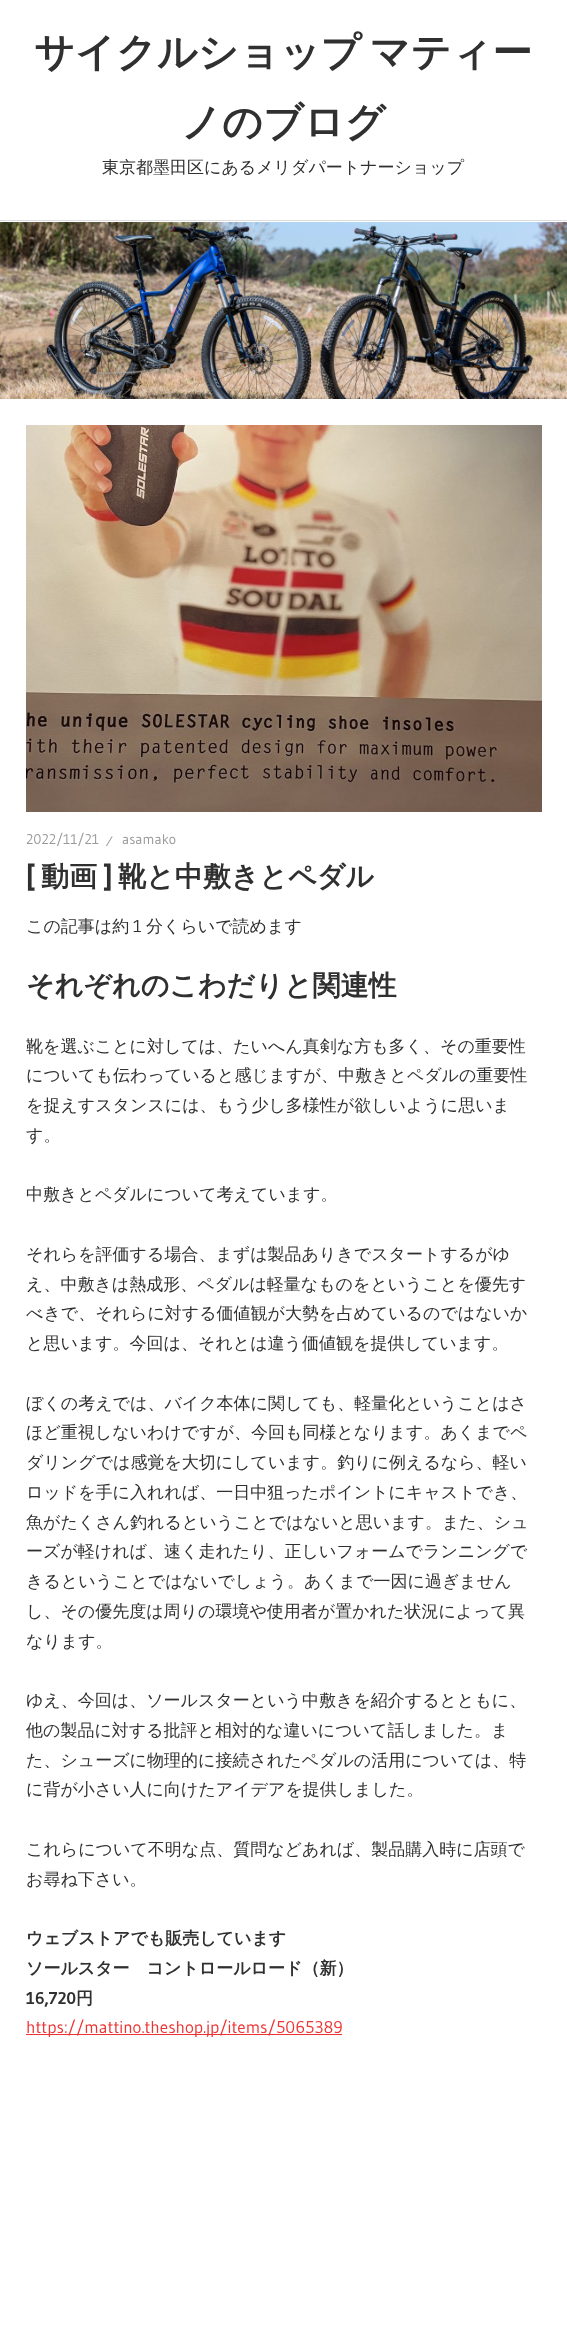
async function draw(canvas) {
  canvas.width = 567;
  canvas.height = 2344;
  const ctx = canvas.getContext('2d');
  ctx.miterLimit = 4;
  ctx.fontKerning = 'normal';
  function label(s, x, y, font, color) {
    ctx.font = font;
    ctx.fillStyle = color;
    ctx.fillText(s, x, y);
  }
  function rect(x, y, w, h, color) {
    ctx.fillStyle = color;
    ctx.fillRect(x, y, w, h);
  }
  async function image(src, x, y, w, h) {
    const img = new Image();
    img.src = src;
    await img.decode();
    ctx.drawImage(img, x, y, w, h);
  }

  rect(0, 0, 567, 2344, '#fff');
  rect(0, 220, 567, 1, '#ddd');
  ctx.wordSpacing = '-4px';
  label('サイクルショップ マティー', 34, 66, 'bold 40px WenQuanYi Zen Hei', '#303030');
  ctx.wordSpacing = '0px';
  label('ノのブログ', 181, 136, 'bold 40px WenQuanYi Zen Hei', '#303030');
  label('東京都墨田区にあるメリダパートナーショップ', 102, 173, '500 17px WenQuanYi Zen Hei', '#303030');
  await image('assets/img1.png', 0, 222, 567, 177);
  await image('assets/img2.png', 26, 425, 516, 387);
  label('2022/11/21', 26, 844, '14px Gudea', '#999');
  label('⁄', 106, 846, '14px Gudea', '#999');
  label('asamako', 122, 844, '14px Gudea', '#999');
  label('[', 26, 886, 'bold 28px Magra', '#303030');
  label('動画', 41, 886, 'bold 28px WenQuanYi Zen Hei', '#303030');
  label(']', 103, 886, 'bold 28px Magra', '#303030');
  label('靴と中敷きとペダル', 118, 886, 'bold 28px WenQuanYi Zen Hei', '#303030');
  label('この記事は約', 26, 932, '500 17px WenQuanYi Zen Hei', '#303030');
  label('1', 133, 932, '17px Gudea', '#303030');
  label('分くらいで読めます', 146, 932, '500 17px WenQuanYi Zen Hei', '#303030');
  label('それぞれのこわだりと関連性', 26, 995, 'bold 28px WenQuanYi Zen Hei', '#303030');
  label('靴を選ぶことに対しては、たいへん真剣な方も多く、その重要性', 26, 1052, '500 17px WenQuanYi Zen Hei', '#303030');
  label('についても伝わっていると感じますが、中敷きとペダルの重要性', 26, 1081, '500 17px WenQuanYi Zen Hei', '#303030');
  label('を捉えすスタンスには、もう少し多様性が欲しいように思いま', 26, 1111, '500 17px WenQuanYi Zen Hei', '#303030');
  label('す。', 26, 1141, '500 17px WenQuanYi Zen Hei', '#303030');
  label('中敷きとペダルについて考えています。', 26, 1200, '500 17px WenQuanYi Zen Hei', '#303030');
  label('それらを評価する場合、まずは製品ありきでスタートするがゆ', 26, 1260, '500 17px WenQuanYi Zen Hei', '#303030');
  label('え、中敷きは熱成形、ペダルは軽量なものをということを優先す', 26, 1290, '500 17px WenQuanYi Zen Hei', '#303030');
  label('べきで、それらに対する価値観が大勢を占めているのではないか', 26, 1319, '500 17px WenQuanYi Zen Hei', '#303030');
  label('と思います。今回は、それとは違う価値観を提供しています。', 26, 1349, '500 17px WenQuanYi Zen Hei', '#303030');
  label('ぼくの考えでは、バイク本体に関しても、軽量化ということはさ', 26, 1409, '500 17px WenQuanYi Zen Hei', '#303030');
  label('ほど重視しないわけですが、今回も同様となります。あくまでペ', 26, 1438, '500 17px WenQuanYi Zen Hei', '#303030');
  label('ダリングでは感覚を大切にしています。釣りに例えるなら、軽い', 26, 1468, '500 17px WenQuanYi Zen Hei', '#303030');
  label('ロッドを手に入れれば、一日中狙ったポイントにキャストでき、', 26, 1498, '500 17px WenQuanYi Zen Hei', '#303030');
  label('魚がたくさん釣れるということではないと思います。また、シュ', 26, 1528, '500 17px WenQuanYi Zen Hei', '#303030');
  label('ーズが軽ければ、速く走れたり、正しいフォームでランニングで', 26, 1557, '500 17px WenQuanYi Zen Hei', '#303030');
  label('きるということではないでしょう。あくまで一因に過ぎません', 26, 1587, '500 17px WenQuanYi Zen Hei', '#303030');
  label('し、その優先度は周りの環境や使用者が置かれた状況によって異', 26, 1617, '500 17px WenQuanYi Zen Hei', '#303030');
  label('なります。', 26, 1647, '500 17px WenQuanYi Zen Hei', '#303030');
  label('ゆえ、今回は、ソールスターという中敷きを紹介するとともに、', 26, 1706, '500 17px WenQuanYi Zen Hei', '#303030');
  label('他の製品に対する批評と相対的な違いについて話しました。ま', 26, 1736, '500 17px WenQuanYi Zen Hei', '#303030');
  label('た、シューズに物理的に接続されたペダルの活用については、特', 26, 1766, '500 17px WenQuanYi Zen Hei', '#303030');
  label('に背が小さい人に向けたアイデアを提供しました。', 26, 1795, '500 17px WenQuanYi Zen Hei', '#303030');
  label('これらについて不明な点、質問などあれば、製品購入時に店頭で', 26, 1855, '500 17px WenQuanYi Zen Hei', '#303030');
  label('お尋ね下さい。', 26, 1885, '500 17px WenQuanYi Zen Hei', '#303030');
  label('ウェブストアでも販売しています', 26, 1944, 'bold 17px WenQuanYi Zen Hei', '#303030');
  label('ソールスター　コントロールロード（新）', 26, 1974, 'bold 17px WenQuanYi Zen Hei', '#303030');
  label('16,720', 26, 2004, 'bold 17px Gudea', '#303030');
  label('円', 76, 2004, 'bold 17px WenQuanYi Zen Hei', '#303030');
  rect(26, 2034, 316, 1, '#e33');
  label('https://mattino.theshop.jp/items/5065389', 26, 2033, '17px Gudea', '#e33');
}

draw(document.querySelector('canvas'));
